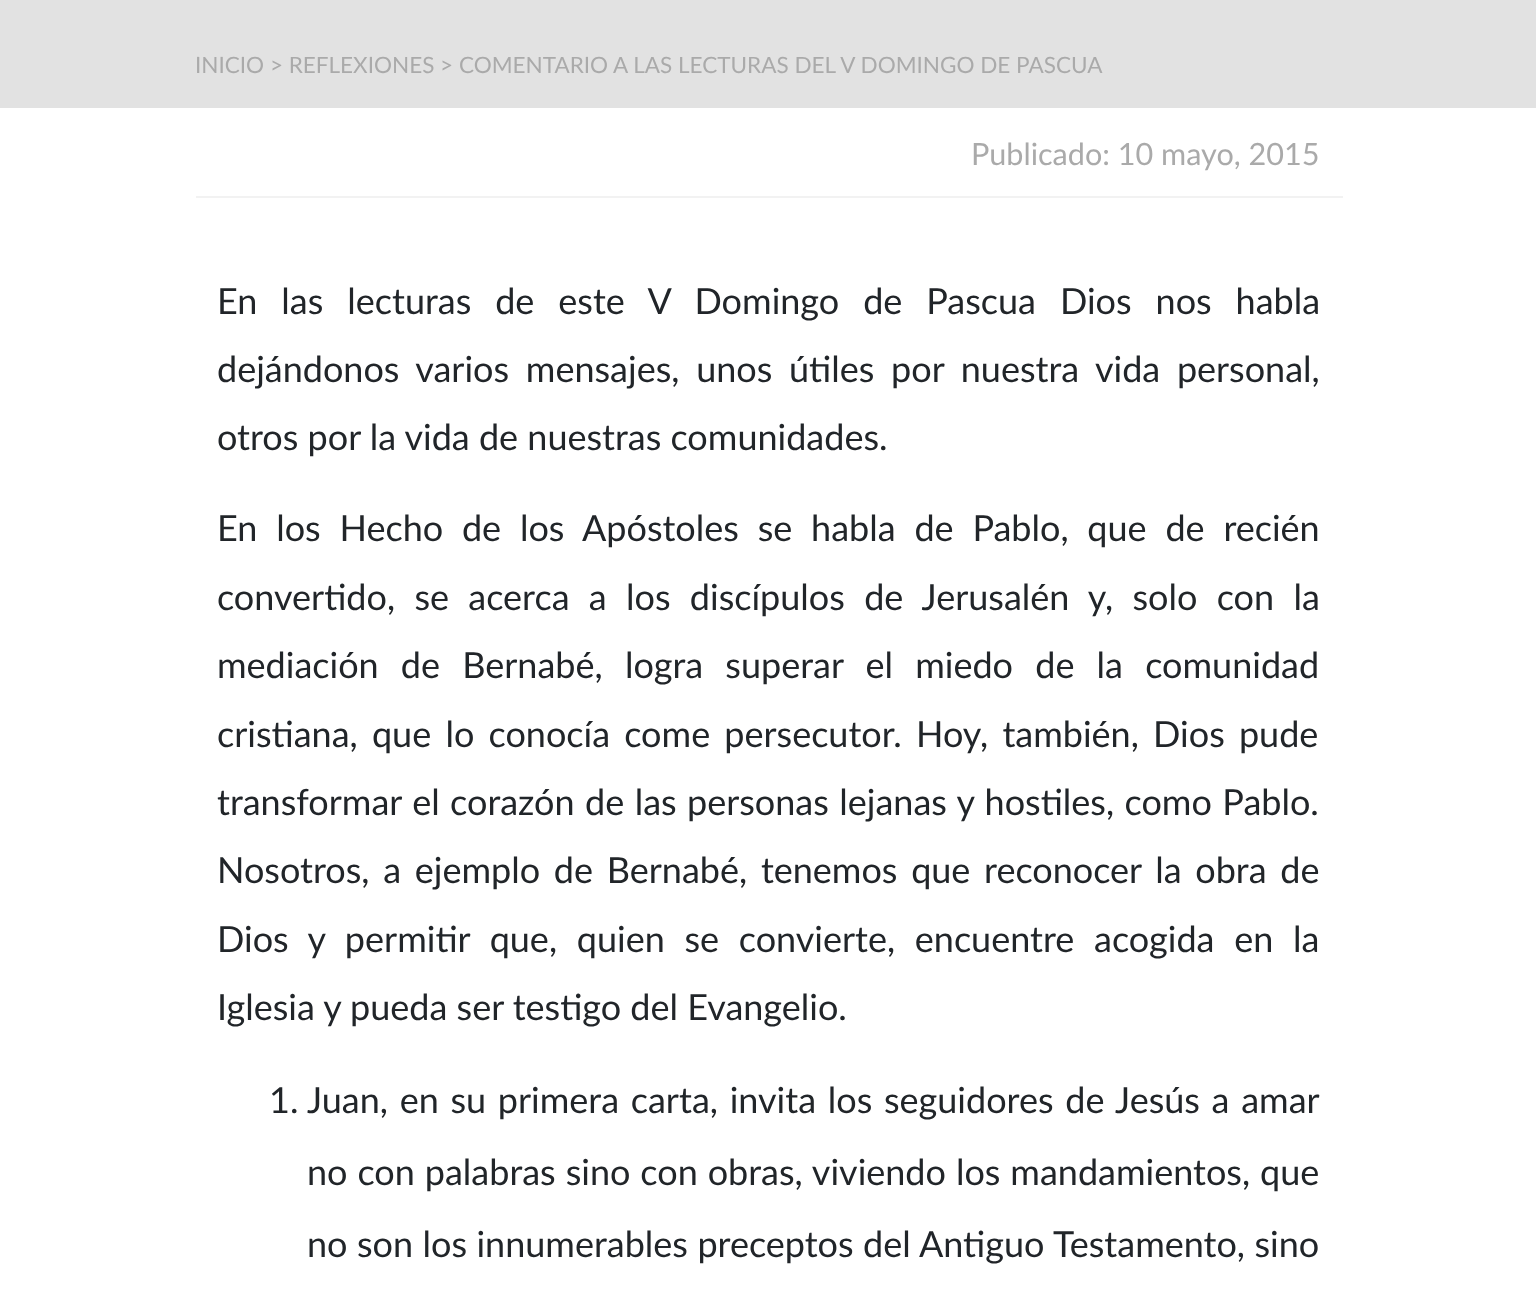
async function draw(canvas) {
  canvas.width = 1536;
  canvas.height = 1313;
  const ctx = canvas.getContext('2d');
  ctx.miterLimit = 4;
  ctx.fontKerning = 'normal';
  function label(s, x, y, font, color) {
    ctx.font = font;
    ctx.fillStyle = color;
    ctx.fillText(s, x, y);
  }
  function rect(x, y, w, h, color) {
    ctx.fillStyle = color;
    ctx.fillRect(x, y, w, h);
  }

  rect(0, 0, 1536, 1313, '#fff');
  rect(0, 0, 1536, 108, '#e2e2e2');
  label('INICIO > REFLEXIONES > COMENTARIO A LAS LECTURAS DEL V DOMINGO DE PASCUA', 195, 73, '22.5px Lato', '#aaa');
  rect(196, 196, 1147, 2, '#f2f2f2');
  label('Publicado: 10 mayo, 2015', 971, 165, '30.6px Lato', '#aaa');
  ctx.wordSpacing = '14.75px';
  label('En las lecturas de este V Domingo de Pascua Dios nos habla', 217, 314, '36px Lato', '#212529');
  ctx.wordSpacing = '7.5px';
  label('dejándonos varios mensajes, unos útiles por nuestra vida personal,', 217, 382, '36px Lato', '#212529');
  ctx.wordSpacing = '0px';
  label('otros por la vida de nuestras comunidades.', 217, 450, '36px Lato', '#212529');
  ctx.wordSpacing = '9.6px';
  label('En los Hecho de los Apóstoles se habla de Pablo, que de recién', 217, 541, '36px Lato', '#212529');
  ctx.wordSpacing = '10.1px';
  label('convertido, se acerca a los discípulos de Jerusalén y, solo con la', 217, 610, '36px Lato', '#212529');
  ctx.wordSpacing = '13px';
  label('mediación de Bernabé, logra superar el miedo de la comunidad', 217, 678, '36px Lato', '#212529');
  ctx.wordSpacing = '5px';
  label('cristiana, que lo conocía come persecutor. Hoy, también, Dios pude', 217, 747, '36px Lato', '#212529');
  ctx.wordSpacing = '1.25px';
  label('transformar el corazón de las personas lejanas y hostiles, como Pablo.', 217, 815, '36px Lato', '#212529');
  ctx.wordSpacing = '4.5px';
  label('Nosotros, a ejemplo de Bernabé, tenemos que reconocer la obra de', 217, 883, '36px Lato', '#212529');
  ctx.wordSpacing = '10.5px';
  label('Dios y permitir que, quien se convierte, encuentre acogida en la', 217, 952, '36px Lato', '#212529');
  ctx.wordSpacing = '0px';
  label('Iglesia y pueda ser testigo del Evangelio.', 217, 1020, '36px Lato', '#212529');
  label('1.', 269, 1113, '36px Lato', '#212529');
  ctx.wordSpacing = '2.5px';
  label('Juan, en su primera carta, invita los seguidores de Jesús a amar', 307, 1113, '36px Lato', '#212529');
  ctx.wordSpacing = '0.75px';
  label('no con palabras sino con obras, viviendo los mandamientos, que', 307, 1185, '36px Lato', '#212529');
  ctx.wordSpacing = '0.25px';
  label('no son los innumerables preceptos del Antiguo Testamento, sino', 307, 1257, '36px Lato', '#212529');
}

draw(document.querySelector('canvas'));
